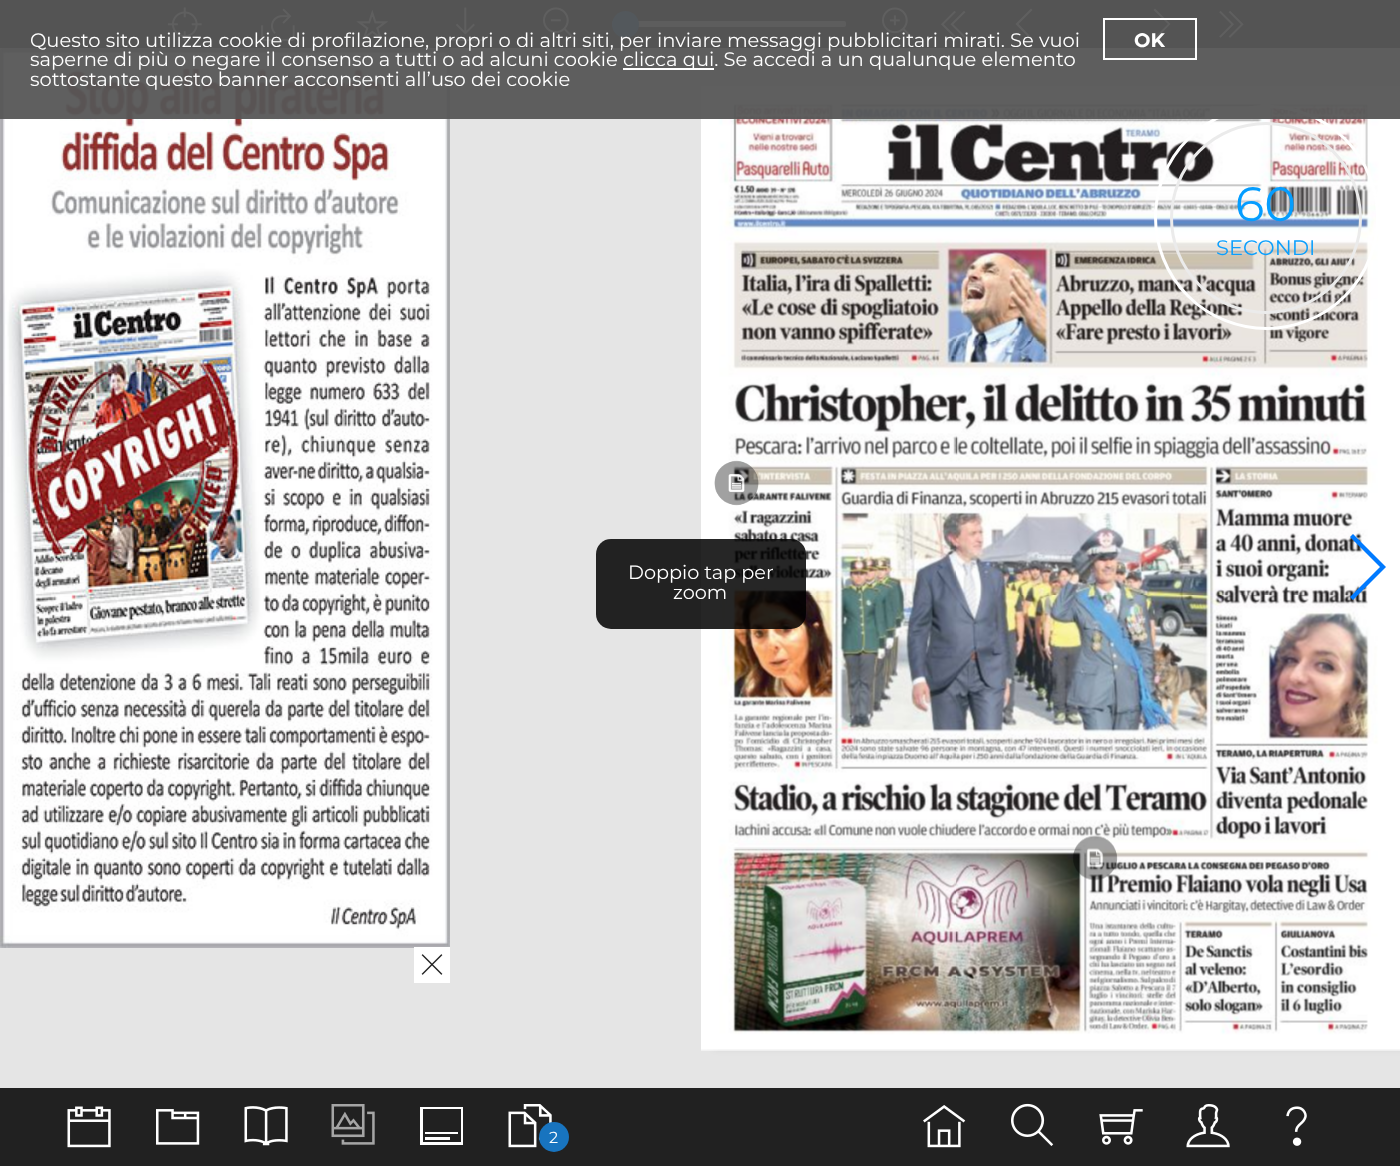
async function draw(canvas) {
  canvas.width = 1400;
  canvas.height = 1166;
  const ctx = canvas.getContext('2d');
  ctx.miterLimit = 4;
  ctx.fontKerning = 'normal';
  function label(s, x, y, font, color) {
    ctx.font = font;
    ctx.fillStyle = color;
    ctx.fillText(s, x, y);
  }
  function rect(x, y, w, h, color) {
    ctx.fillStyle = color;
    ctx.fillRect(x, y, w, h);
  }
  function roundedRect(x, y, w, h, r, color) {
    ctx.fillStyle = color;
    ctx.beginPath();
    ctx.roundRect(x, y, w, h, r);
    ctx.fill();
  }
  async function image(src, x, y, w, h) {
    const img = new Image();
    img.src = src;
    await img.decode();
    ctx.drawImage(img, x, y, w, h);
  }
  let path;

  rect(0, 0, 1400, 1166, '#e5e5e5');
  rect(0, 0, 1400, 48, '#292929');
  await image('assets/img1.png', 167, 7, 35, 35);
  await image('assets/img2.png', 261, 8, 34, 34);
  await image('assets/img3.png', 356, 9, 33, 32);
  await image('assets/img4.png', 448, 7, 35, 35);
  await image('assets/img5.png', 543, 7, 33, 34);
  roundedRect(612, 21, 234, 6, 2, '#d4d4d4');
  ctx.fillStyle = '#1874bf';
  ctx.beginPath();
  ctx.arc(625.5, 24.5, 13.5, 0, 2 * Math.PI);
  ctx.fill();
  await image('assets/img6.png', 882, 7, 33, 34);
  await image('assets/img7.png', 941, 10, 25, 28);
  ctx.fillStyle = '#fff';
  path = new Path2D('M1018.5 24L1032.5 38.5L1031 40L1015.5 24L1031 8.5L1032.5 10Z');
  ctx.fill(path);
  path = new Path2D('M1170.5 24L1155 40L1153.5 38.5L1168 24L1153.5 10L1155 8.5Z');
  ctx.fill(path);
  await image('assets/img8.png', 1219, 10, 25, 28);
  await image('assets/img9.png', 0, 48, 450, 900);
  ctx.fillStyle = '#00000024';
  ctx.filter = 'blur(4.5px)';
  ctx.beginPath();
  ctx.rect(714, 92, 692, 955);
  ctx.fill();
  ctx.filter = 'none';
  await image('assets/img11.png', 701, 86, 699, 965);
  label('SECONDI', 1216, 255, '21px Montserrat', '#0b9ffd');
  ctx.beginPath();
  ctx.arc(1266, 218, 94.5, 0, 2 * Math.PI);
  ctx.strokeStyle = '#ebebeb';
  ctx.lineWidth = 3;
  ctx.stroke();
  label('60', 1235, 221, '48px Montserrat', '#049dff');
  ctx.beginPath();
  ctx.arc(1266.5, 217.5, 111, 0, 2 * Math.PI);
  ctx.strokeStyle = '#fff';
  ctx.stroke();
  rect(0, 0, 1400, 119, '#565656f2');
  label('Questo sito utilizza cookie di profilazione, propri o di altri siti, per inviare messaggi pubblicitari mirati. Se vuoi', 30, 47, '19.5px Montserrat', '#fff');
  label('saperne di più o negare il consenso a tutti o ad alcuni cookie', 30, 66, '19.5px Montserrat', '#fff');
  rect(623, 68, 91, 2, '#fff');
  label('clicca qui. Se accedi a un qualunque elemento', 623, 66, '19.5px Montserrat', '#fff');
  label('sottostante questo banner acconsenti all’uso dei cookie', 30, 86, '19.5px Montserrat', '#fff');
  ctx.lineWidth = 2;
  ctx.strokeRect(1104, 19, 92, 40);
  label('OK', 1134, 47, 'bold 19.5px Montserrat', '#fff');
  rect(414, 947, 36, 36, '#fff');
  await image('assets/img10.png', 421, 954, 22, 21);
  await image('assets/img12.png', 714, 460, 45, 46);
  await image('assets/img13.png', 1073, 835, 45, 46);
  ctx.fillStyle = '#007aff';
  path = new Path2D('M1386 567L1353 600L1350 597L1380 567L1350 537L1353 534Z');
  ctx.fill(path);
  rect(0, 1088, 1400, 78, '#212121');
  await image('assets/img14.png', 67, 1106, 44, 42);
  await image('assets/img15.png', 156, 1109, 44, 36);
  await image('assets/img16.png', 244, 1106, 44, 40);
  await image('assets/img17.png', 331, 1104, 44, 41);
  ctx.fillStyle = '#fff';
  path = new Path2D('M458 1134H425V1132H458ZM450 1137H425V1140H450ZM463 1107V1145H420V1107ZM461 1109H423V1142H461Z');
  ctx.fill(path);
  await image('assets/img18.png', 508, 1104, 44, 44);
  ctx.fillStyle = '#1874bf';
  ctx.beginPath();
  ctx.arc(554, 1137, 15, 0, 2 * Math.PI);
  ctx.fill();
  label('2', 549, 1143, '16px Montserrat', '#fff');
  await image('assets/img19.png', 923, 1105, 43, 43);
  await image('assets/img20.png', 1011, 1103, 43, 43);
  await image('assets/img21.png', 1099, 1109, 44, 36);
  await image('assets/img22.png', 1186, 1104, 44, 44);
  await image('assets/img23.png', 1286, 1106, 21, 40);
  roundedRect(596, 539, 210, 90, 15, '#000000d9');
  label('Doppio tap per', 628, 579, '19.25px Montserrat', '#fff');
  label('zoom', 673, 599, '19.25px Montserrat', '#fff');
}

draw(document.querySelector('canvas'));
